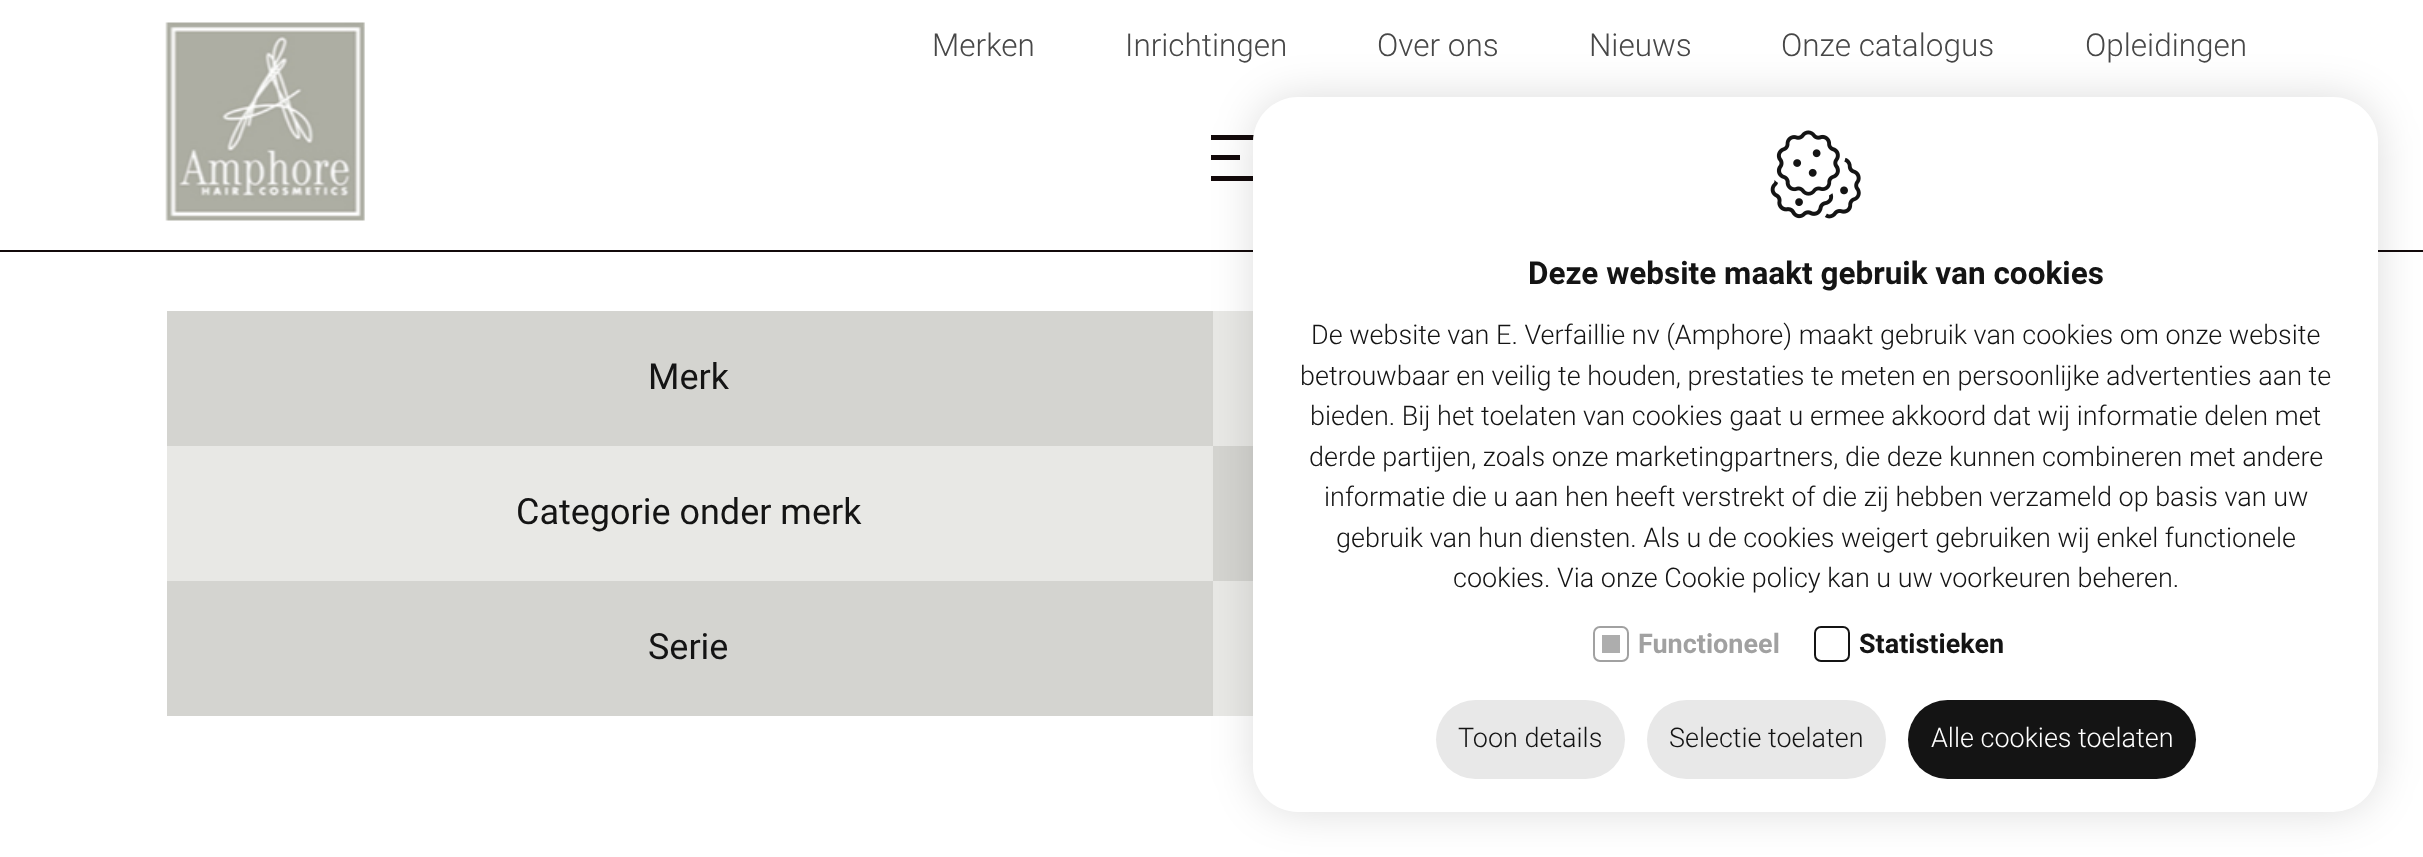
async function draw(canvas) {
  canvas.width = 2423;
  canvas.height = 857;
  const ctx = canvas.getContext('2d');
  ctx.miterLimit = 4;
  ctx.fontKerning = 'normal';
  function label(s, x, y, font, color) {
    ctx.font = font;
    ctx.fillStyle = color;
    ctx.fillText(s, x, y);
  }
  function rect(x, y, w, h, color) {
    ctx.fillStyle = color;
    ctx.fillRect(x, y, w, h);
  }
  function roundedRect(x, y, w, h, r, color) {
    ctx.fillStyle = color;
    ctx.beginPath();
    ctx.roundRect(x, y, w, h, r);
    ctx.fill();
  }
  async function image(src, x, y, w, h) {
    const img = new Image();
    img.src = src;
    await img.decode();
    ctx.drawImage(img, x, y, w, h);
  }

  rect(0, 0, 2423, 857, '#fff');
  rect(0, 250, 2423, 2, '#130a0b');
  await image('assets/img1.png', 165, 22, 200, 199);
  rect(1211, 135, 43, 5, '#130a0b');
  rect(1211, 155, 29, 5, '#130a0b');
  rect(1211, 176, 42, 5, '#130a0b');
  label('Merken', 932, 56, '300 31.5px Roboto', '#474747');
  label('Inrichtingen', 1125, 56, '300 31.5px Roboto', '#474747');
  label('Over ons', 1377, 56, '300 31.5px Roboto', '#474747');
  label('Nieuws', 1589, 56, '300 31.5px Roboto', '#474747');
  label('Onze catalogus', 1781, 56, '300 31.5px Roboto', '#474747');
  label('Opleidingen', 2085, 56, '300 31.5px Roboto', '#474747');
  rect(167, 311, 1046, 135, '#d4d4d0');
  label('Merk', 648, 389, '36px Roboto', '#141414');
  rect(1213, 311, 40, 135, '#e8e8e5');
  rect(167, 446, 1046, 135, '#e8e8e5');
  label('Categorie onder merk', 516, 524, '36px Roboto', '#141414');
  rect(1213, 446, 40, 135, '#d4d4d0');
  rect(167, 581, 1046, 135, '#d4d4d0');
  label('Serie', 648, 659, '36px Roboto', '#141414');
  rect(1213, 581, 40, 135, '#e8e8e5');
  ctx.fillStyle = '#00000026';
  ctx.filter = 'blur(22.5px)';
  ctx.beginPath();
  ctx.roundRect(1256, 99, 1120, 711, 43);
  ctx.fill();
  ctx.filter = 'none';
  roundedRect(1253, 97, 1125, 715, 45, '#fff');
  await image('assets/img2.png', 1770, 130, 91, 89);
  label('Deze website maakt gebruik van cookies', 1528, 284, 'bold 31.5px Roboto', '#141414');
  label('De website van E. Verfaillie nv (Amphore) maakt gebruik van cookies om onze website', 1311, 344, '300 27px Roboto', '#141414');
  label('betrouwbaar en veilig te houden, prestaties te meten en persoonlijke advertenties aan te', 1300, 385, '300 27px Roboto', '#141414');
  label('bieden. Bij het toelaten van cookies gaat u ermee akkoord dat wij informatie delen met', 1310, 425, '300 27px Roboto', '#141414');
  label('derde partijen, zoals onze marketingpartners, die deze kunnen combineren met andere', 1309, 466, '300 27px Roboto', '#141414');
  label('informatie die u aan hen heeft verstrekt of die zij hebben verzameld op basis van uw', 1324, 506, '300 27px Roboto', '#141414');
  label('gebruik van hun diensten. Als u de cookies weigert gebruiken wij enkel functionele', 1336, 547, '300 27px Roboto', '#141414');
  label('cookies. Via onze Cookie policy kan u uw voorkeuren beheren.', 1453, 587, '300 27px Roboto', '#141414');
  ctx.beginPath();
  ctx.roundRect(1594, 627, 34, 34, 6);
  ctx.strokeStyle = '#a1a1a1';
  ctx.lineWidth = 2;
  ctx.stroke();
  label('Functioneel', 1638, 653, 'bold 27px Roboto', '#a1a1a1');
  rect(1602, 635, 18, 18, '#adadad');
  ctx.beginPath();
  ctx.roundRect(1815, 627, 34, 34, 6);
  ctx.strokeStyle = '#141414';
  ctx.stroke();
  label('Statistieken', 1859, 653, 'bold 27px Roboto', '#141414');
  roundedRect(1436, 700, 189, 79, 39.5, '#e8e8e8');
  label('Toon details', 1458, 747, '300 27px Roboto', '#141414');
  roundedRect(1647, 700, 239, 79, 39.5, '#e8e8e8');
  label('Selectie toelaten', 1669, 747, '300 27px Roboto', '#141414');
  roundedRect(1908, 700, 288, 79, 39.5, '#141414');
  label('Alle cookies toelaten', 1931, 747, '300 27px Roboto', '#fff');
}

draw(document.querySelector('canvas'));
